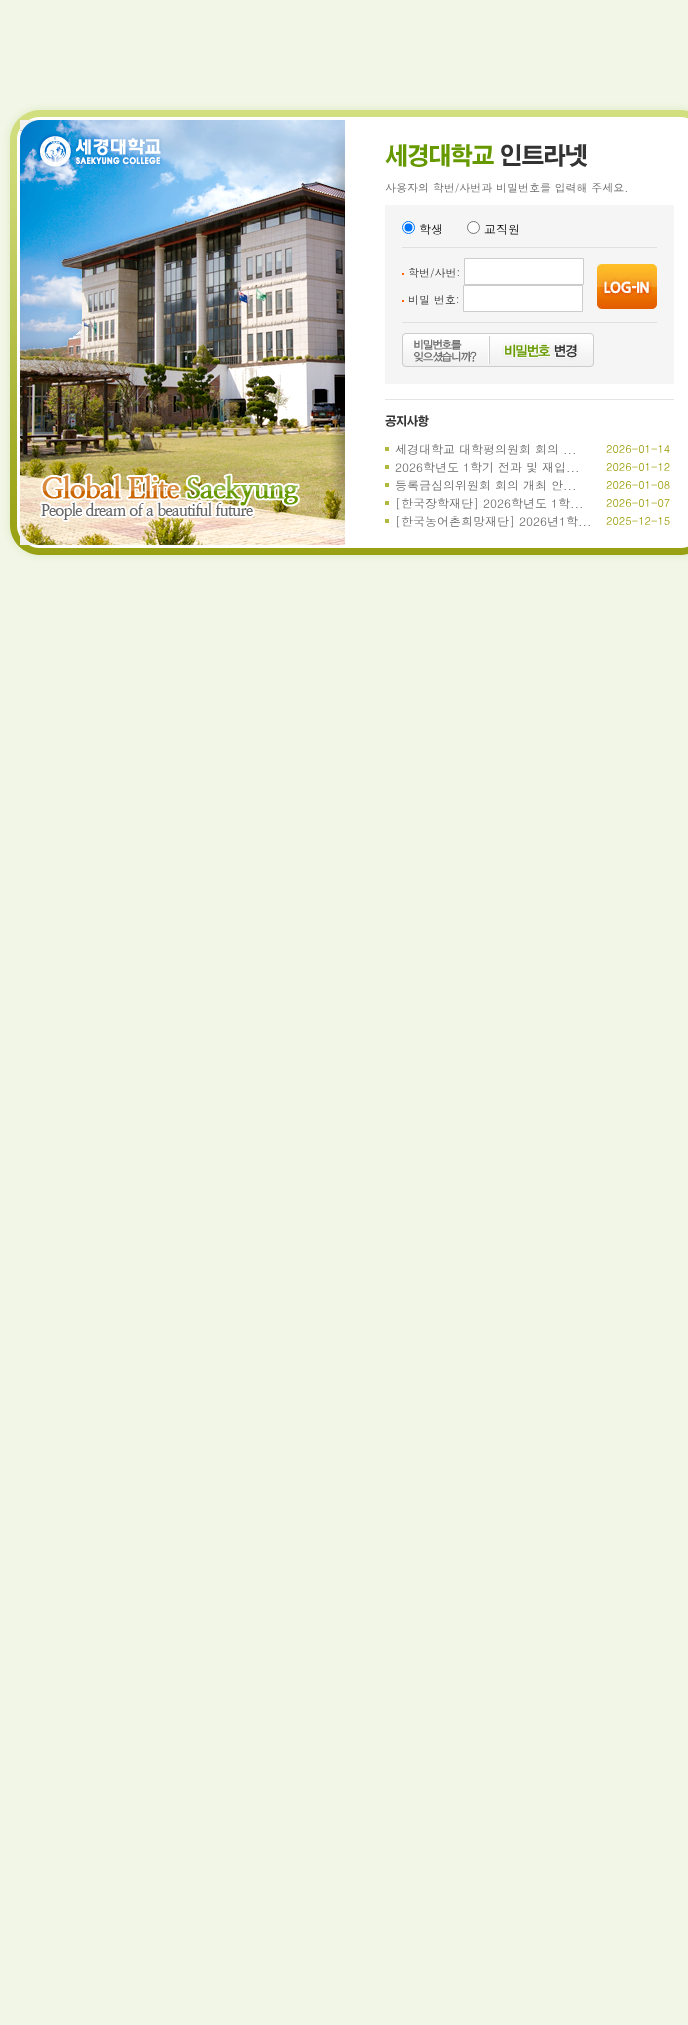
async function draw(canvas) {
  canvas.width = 688;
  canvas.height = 2025;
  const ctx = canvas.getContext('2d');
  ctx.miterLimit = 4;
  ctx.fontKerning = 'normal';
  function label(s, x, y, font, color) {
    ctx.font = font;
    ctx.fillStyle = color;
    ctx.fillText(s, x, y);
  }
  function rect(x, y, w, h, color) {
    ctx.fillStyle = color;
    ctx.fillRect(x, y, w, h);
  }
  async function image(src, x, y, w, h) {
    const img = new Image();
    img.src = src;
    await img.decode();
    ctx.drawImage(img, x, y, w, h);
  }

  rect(0, 0, 688, 2025, '#f1f6e6');
  await image('assets/img1.png', 0, 100, 688, 465);
  await image('assets/img2.png', 20, 120, 325, 425);
  await image('assets/img3.png', 385, 144, 203, 23);
  label('사용자의 학번/사번과 비밀번호를 입력해 주세요.', 385, 192, '11px Dotum', '#666');
  rect(385, 205, 289, 179, '#f5f5f5');
  ctx.fillStyle = '#fff';
  ctx.beginPath();
  ctx.arc(408.5, 227.5, 6, 0, 2 * Math.PI);
  ctx.fill();
  ctx.strokeStyle = '#0075ff';
  ctx.stroke();
  ctx.fillStyle = '#0075ff';
  ctx.beginPath();
  ctx.arc(408.5, 227.5, 4, 0, 2 * Math.PI);
  ctx.fill();
  label('학생', 419, 234, '12px Dotum', '#000');
  ctx.fillStyle = '#fff';
  ctx.beginPath();
  ctx.arc(473.5, 227.5, 6, 0, 2 * Math.PI);
  ctx.fill();
  ctx.strokeStyle = '#767676';
  ctx.stroke();
  label('교직원', 484, 234, '12px Dotum', '#000');
  rect(402, 247, 255, 1, '#e0e0e0');
  rect(402, 322, 255, 1, '#e0e0e0');
  rect(402, 273, 2, 2, '#f60');
  label('학번/사번:', 408, 277, '11px Dotum', '#333');
  ctx.fillStyle = '#fff';
  ctx.beginPath();
  ctx.rect(464.5, 258.5, 119, 26);
  ctx.fill();
  ctx.strokeStyle = '#ccc';
  ctx.stroke();
  await image('assets/img4.png', 597, 264, 60, 45);
  rect(402, 300, 2, 2, '#f60');
  label('비밀 번호:', 408, 304, '11px Dotum', '#333');
  ctx.fillStyle = '#fff';
  ctx.beginPath();
  ctx.rect(463.5, 285.5, 119, 26);
  ctx.fill();
  ctx.stroke();
  await image('assets/img5.png', 402, 333, 192, 34);
  rect(385, 399, 289, 1, '#e5e5e5');
  await image('assets/img6.png', 385, 415, 44, 12);
  rect(385, 447, 4, 4, '#afb93d');
  label('세경대학교 대학평의원회 회의 ...', 395, 454, '12px Dotum', '#666');
  label('2026-01-14', 606, 453, '11px Dotum', '#990');
  rect(385, 465, 4, 4, '#afb93d');
  label('2026학년도 1학기 전과 및 재입...', 395, 472, '12px Dotum', '#666');
  label('2026-01-12', 606, 471, '11px Dotum', '#990');
  rect(385, 483, 4, 4, '#afb93d');
  label('등록금심의위원회 회의 개최 안...', 395, 490, '12px Dotum', '#666');
  label('2026-01-08', 606, 489, '11px Dotum', '#990');
  rect(385, 501, 4, 4, '#afb93d');
  label('[한국장학재단] 2026학년도 1학...', 395, 508, '12px Dotum', '#666');
  label('2026-01-07', 606, 507, '11px Dotum', '#990');
  rect(385, 519, 4, 4, '#afb93d');
  label('[한국농어촌희망재단] 2026년1학...', 395, 526, '12px Dotum', '#666');
  label('2025-12-15', 606, 525, '11px Dotum', '#990');
}

draw(document.querySelector('canvas'));
